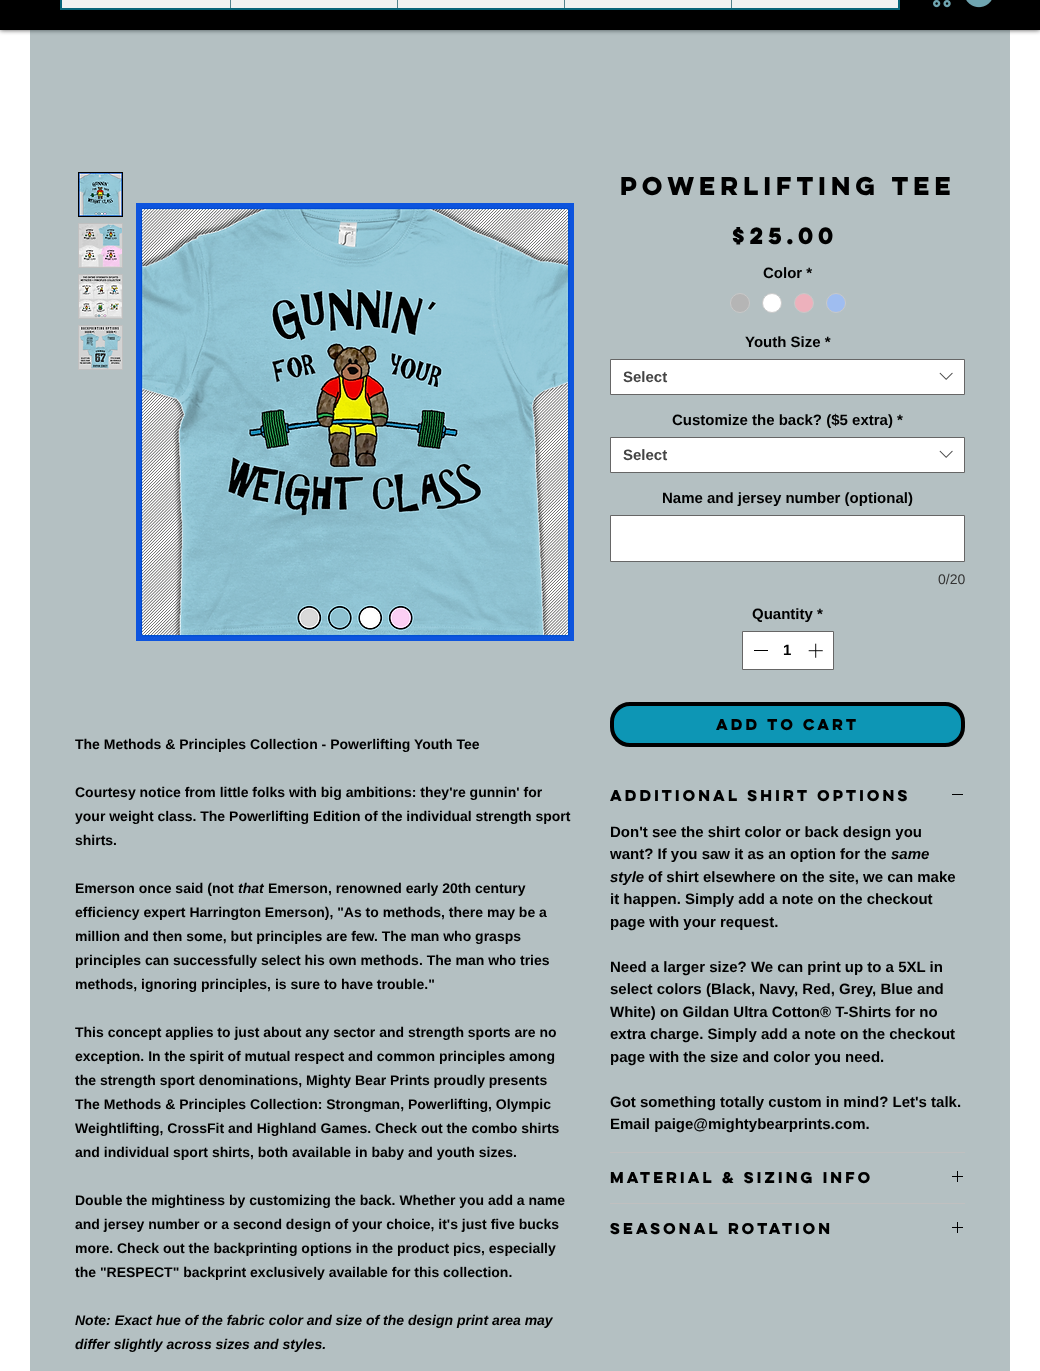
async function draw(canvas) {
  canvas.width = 1040;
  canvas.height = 1371;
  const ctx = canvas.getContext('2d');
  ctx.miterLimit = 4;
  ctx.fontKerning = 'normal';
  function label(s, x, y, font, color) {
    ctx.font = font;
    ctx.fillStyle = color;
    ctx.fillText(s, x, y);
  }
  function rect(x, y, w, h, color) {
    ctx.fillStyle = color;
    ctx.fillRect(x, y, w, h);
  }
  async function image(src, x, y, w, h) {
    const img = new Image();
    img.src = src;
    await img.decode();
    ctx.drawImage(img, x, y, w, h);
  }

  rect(0, 0, 1040, 1371, '#fff');
  ctx.fillStyle = '#000000b3';
  ctx.filter = 'blur(2.5px)';
  ctx.beginPath();
  ctx.rect(0, -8, 1040, 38);
  ctx.fill();
  ctx.filter = 'none';
  rect(0, 0, 1040, 30, '#000');
  ctx.fillStyle = '#f1f1f1';
  ctx.beginPath();
  ctx.rect(61, -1, 838, 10);
  ctx.fill();
  ctx.strokeStyle = '#086479';
  ctx.lineWidth = 2;
  ctx.stroke();
  rect(230, 0, 1, 8, '#54828c');
  rect(397, 0, 1, 8, '#54828c');
  rect(564, 0, 1, 8, '#54828c');
  rect(731, 0, 1, 8, '#54828c');
  await image('assets/img1.png', 933, 0, 59, 8);
  rect(30, 30, 980, 1341, '#2e4f575c');
  ctx.strokeStyle = '#000';
  ctx.lineWidth = 1;
  ctx.strokeRect(78.5, 172.5, 44, 44);
  await image('assets/img2.png', 79, 173, 43, 43);
  ctx.strokeStyle = '#c0c0c0';
  ctx.strokeRect(78.5, 223.5, 44, 44);
  await image('assets/img3.png', 79, 224, 43, 43);
  ctx.strokeRect(78.5, 274.5, 44, 44);
  await image('assets/img4.png', 79, 275, 43, 43);
  ctx.strokeRect(78.5, 325.5, 44, 44);
  await image('assets/img5.png', 79, 326, 43, 43);
  await image('assets/img6.png', 136, 203, 438, 438);
  label('The Methods & Principles Collection - Powerlifting Youth Tee', 75, 749, 'bold 14px Liberation Sans', '#000');
  label('Courtesy notice from little folks with big ambitions: they\'re gunnin\' for', 75, 797, 'bold 14px Liberation Sans', '#000');
  label('your weight class. The Powerlifting Edition of the individual strength sport', 75, 821, 'bold 14px Liberation Sans', '#000');
  label('shirts.', 75, 845, 'bold 14px Liberation Sans', '#000');
  label('Emerson once said (not', 75, 893, 'bold 14px Liberation Sans', '#000');
  label('that', 238, 893, 'italic bold 14px Liberation Sans', '#000');
  label('Emerson, renowned early 20th century', 268, 893, 'bold 14px Liberation Sans', '#000');
  label('efficiency expert Harrington Emerson), "As to methods, there may be a', 75, 917, 'bold 14px Liberation Sans', '#000');
  label('million and then some, but principles are few. The man who grasps', 75, 941, 'bold 14px Liberation Sans', '#000');
  label('principles can successfully select his own methods. The man who tries', 75, 965, 'bold 14px Liberation Sans', '#000');
  label('methods, ignoring principles, is sure to have trouble."', 75, 989, 'bold 14px Liberation Sans', '#000');
  label('This concept applies to just about any sector and strength sports are no', 75, 1037, 'bold 14px Liberation Sans', '#000');
  label('exception. In the spirit of mutual respect and common principles among', 75, 1061, 'bold 14px Liberation Sans', '#000');
  label('the strength sport denominations, Mighty Bear Prints proudly presents', 75, 1085, 'bold 14px Liberation Sans', '#000');
  label('The Methods & Principles Collection: Strongman, Powerlifting, Olympic', 75, 1109, 'bold 14px Liberation Sans', '#000');
  label('Weightlifting, CrossFit and Highland Games. Check out the combo shirts', 75, 1133, 'bold 14px Liberation Sans', '#000');
  label('and individual sport shirts, both available in baby and youth sizes.', 75, 1157, 'bold 14px Liberation Sans', '#000');
  label('Double the mightiness by customizing the back. Whether you add a name', 75, 1205, 'bold 14px Liberation Sans', '#000');
  label('and jersey number or a second design of your choice, it\'s just five bucks', 75, 1229, 'bold 14px Liberation Sans', '#000');
  label('more. Check out the backprinting options in the product pics, especially', 75, 1253, 'bold 14px Liberation Sans', '#000');
  label('the "RESPECT" backprint exclusively available for this collection.', 75, 1277, 'bold 14px Liberation Sans', '#000');
  label('Note: Exact hue of the fabric color and size of the design print area may', 75, 1325, 'italic bold 14px Liberation Sans', '#000');
  label('differ slightly across sizes and styles.', 75, 1349, 'italic bold 14px Liberation Sans', '#000');
  label('Powerlifting Tee', 620, 195, 'bold 23px "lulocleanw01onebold"', '#000');
  label('$25.00', 732, 244, 'bold 21px "lulocleanw01onebold"', '#000');
  label('Color *', 763, 278, 'bold 15px Liberation Sans', '#000');
  ctx.fillStyle = '#b5b5b5';
  ctx.beginPath();
  ctx.arc(740, 303, 9.5, 0, 2 * Math.PI);
  ctx.fill();
  ctx.strokeStyle = '#c9c9c9';
  ctx.stroke();
  ctx.fillStyle = '#fff';
  ctx.beginPath();
  ctx.arc(772, 303, 9.5, 0, 2 * Math.PI);
  ctx.fill();
  ctx.stroke();
  ctx.fillStyle = '#edb1bc';
  ctx.beginPath();
  ctx.arc(804, 303, 9.5, 0, 2 * Math.PI);
  ctx.fill();
  ctx.stroke();
  ctx.fillStyle = '#9fbdf0';
  ctx.beginPath();
  ctx.arc(836, 303, 9.5, 0, 2 * Math.PI);
  ctx.fill();
  ctx.stroke();
  label('Youth Size *', 745, 347, 'bold 15px Liberation Sans', '#000');
  ctx.fillStyle = '#fff';
  ctx.beginPath();
  ctx.rect(610.5, 359.5, 354, 35);
  ctx.fill();
  ctx.strokeStyle = '#666';
  ctx.stroke();
  label('Select', 623, 382, 'bold 15px Liberation Sans', '#444');
  await image('assets/img7.png', 939, 372, 14, 8);
  label('Customize the back? ($5 extra) *', 672, 425, 'bold 15px Liberation Sans', '#000');
  ctx.fillStyle = '#fff';
  ctx.beginPath();
  ctx.rect(610.5, 437.5, 354, 35);
  ctx.fill();
  ctx.stroke();
  label('Select', 623, 460, 'bold 15px Liberation Sans', '#444');
  await image('assets/img7.png', 939, 450, 14, 8);
  label('Name and jersey number (optional)', 662, 503, 'bold 15px Liberation Sans', '#000');
  ctx.fillStyle = '#fff';
  ctx.beginPath();
  ctx.rect(610.5, 515.5, 354, 46);
  ctx.fill();
  ctx.stroke();
  label('0/20', 938, 584, '14px Liberation Sans', '#333');
  label('Quantity *', 752, 619, 'bold 15px Liberation Sans', '#000');
  ctx.fillStyle = '#fff';
  ctx.beginPath();
  ctx.rect(742.5, 631.5, 91, 38);
  ctx.fill();
  ctx.stroke();
  rect(754, 650, 14, 1, '#000');
  label('1', 783, 655, 'bold 15px Liberation Sans', '#000');
  await image('assets/img8.png', 808, 643, 15, 15);
  ctx.fillStyle = '#0d96b5';
  ctx.beginPath();
  ctx.roundRect(612, 704, 351, 41, 18);
  ctx.fill();
  ctx.strokeStyle = '#000';
  ctx.lineWidth = 4;
  ctx.stroke();
  label('Add to Cart', 716, 730, 'bold 14px "lulocleanw01onebold"', '#000');
  rect(610, 1152, 355, 1, '#c0c0c0');
  label('Additional Shirt Options', 610, 801, 'bold 14px "lulocleanw01onebold"', '#000');
  rect(952, 794, 11, 1, '#000');
  label('Don\'t see the shirt color or back design you', 610, 837, 'bold 15px Liberation Sans', '#000');
  label('want? If you saw it as an option for the', 610, 859, 'bold 15px Liberation Sans', '#000');
  label('same', 891, 859, 'italic bold 15px Liberation Sans', '#000');
  label('style', 610, 882, 'italic bold 15px Liberation Sans', '#000');
  label('of shirt elsewhere on the site, we can make', 648, 882, 'bold 15px Liberation Sans', '#000');
  label('it happen. Simply add a note on the checkout', 610, 904, 'bold 15px Liberation Sans', '#000');
  label('page with your request.', 610, 927, 'bold 15px Liberation Sans', '#000');
  label('Need a larger size? We can print up to a 5XL in', 610, 972, 'bold 15px Liberation Sans', '#000');
  label('select colors (Black, Navy, Red, Grey, Blue and', 610, 994, 'bold 15px Liberation Sans', '#000');
  label('White) on Gildan Ultra Cotton® T-Shirts for no', 610, 1017, 'bold 15px Liberation Sans', '#000');
  label('extra charge. Simply add a note on the checkout', 610, 1039, 'bold 15px Liberation Sans', '#000');
  label('page with the size and color you need.', 610, 1062, 'bold 15px Liberation Sans', '#000');
  label('Got something totally custom in mind? Let\'s talk.', 610, 1107, 'bold 15px Liberation Sans', '#000');
  label('Email paige@mightybearprints.com.', 610, 1129, 'bold 15px Liberation Sans', '#000');
  rect(610, 1203, 355, 1, '#c0c0c0');
  label('Material & Sizing Info', 610, 1183, 'bold 14px "lulocleanw01onebold"', '#000');
  await image('assets/img9.png', 952, 1171, 11, 11);
  label('Seasonal Rotation', 610, 1234, 'bold 14px "lulocleanw01onebold"', '#000');
  await image('assets/img9.png', 952, 1222, 11, 11);
}

draw(document.querySelector('canvas'));
